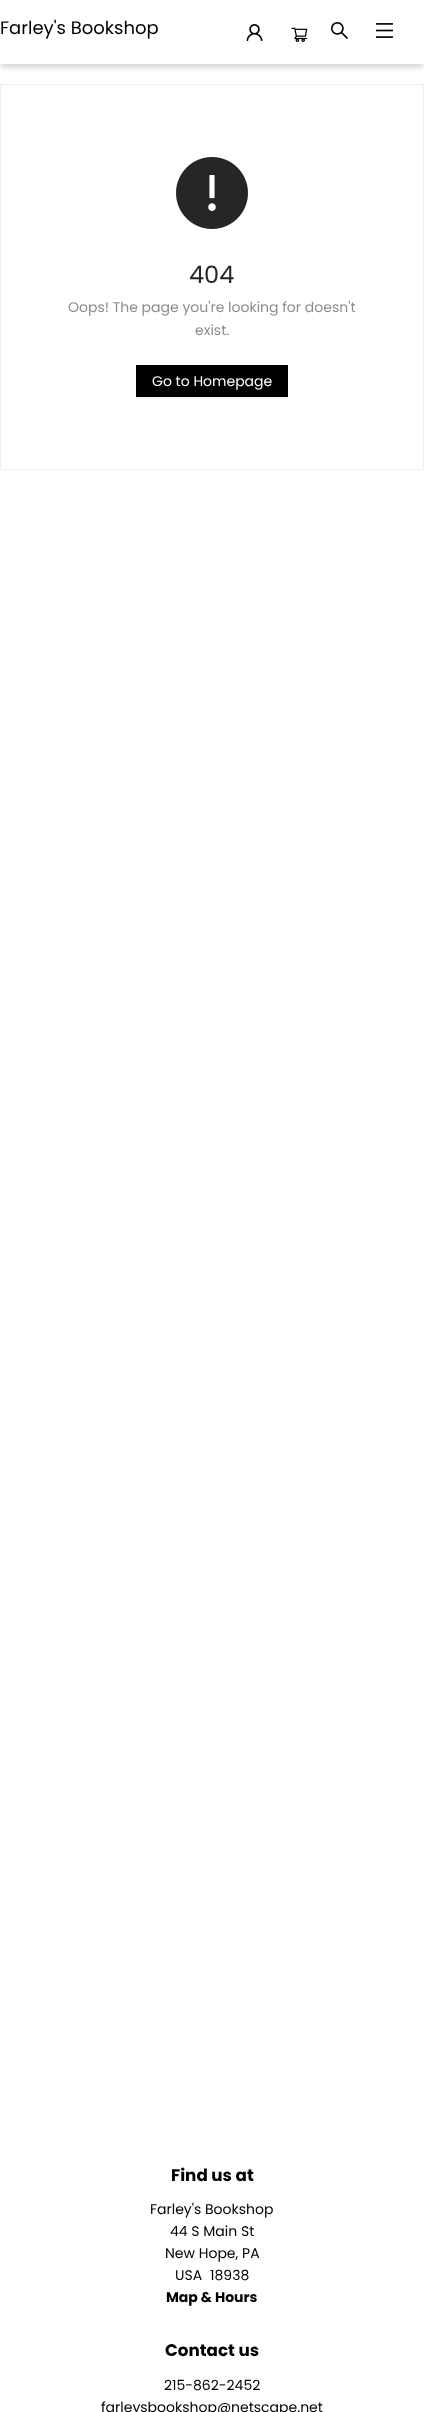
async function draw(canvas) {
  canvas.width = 424;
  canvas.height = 2412;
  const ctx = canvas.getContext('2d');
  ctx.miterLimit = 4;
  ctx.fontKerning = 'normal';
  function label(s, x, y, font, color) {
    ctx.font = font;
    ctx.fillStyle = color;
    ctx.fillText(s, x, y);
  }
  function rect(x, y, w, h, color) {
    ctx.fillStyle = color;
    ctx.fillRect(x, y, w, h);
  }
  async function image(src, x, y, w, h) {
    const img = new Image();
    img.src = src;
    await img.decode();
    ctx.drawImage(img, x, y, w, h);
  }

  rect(0, 0, 424, 2412, '#fff');
  ctx.save();
  ctx.beginPath();
  ctx.rect(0, 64, 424, 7);
  ctx.clip();
  ctx.fillStyle = '#00000026';
  ctx.filter = 'blur(2.5px)';
  ctx.beginPath();
  ctx.rect(1, 6, 422, 62);
  ctx.fill();
  ctx.filter = 'none';
  ctx.restore();
  label('Farley\'s Bookshop', 0, 34, '18px Poppins', '#000');
  await image('assets/img1.png', 246, 24, 17, 17);
  await image('assets/img2.png', 291, 27, 17, 15);
  await image('assets/img3.png', 331, 22, 17, 17);
  await image('assets/img4.png', 376, 23, 17, 15);
  ctx.strokeStyle = '#f0f0f0';
  ctx.strokeRect(0.5, 84.5, 423, 385);
  await image('assets/img5.png', 176, 157, 72, 72);
  label('404', 189, 283, '24px Poppins', '#262626');
  label('Oops! The page you\'re looking for doesn\'t', 68, 312, '14px Poppins', '#8c8c8c');
  label('exist.', 195, 335, '14px Poppins', '#8c8c8c');
  rect(136, 397, 152, 2, '#f4f4f4');
  rect(136, 365, 152, 32, '#000');
  label('Go to Homepage', 152, 386, '14px Poppins', '#fff');
  label('Find us at', 171, 2181, 'bold 16.75px Poppins', '#000');
  label('Farley\'s Bookshop', 150, 2214, '14px Poppins', '#000');
  label('44 S Main St', 170, 2236, '14px Poppins', '#000');
  label('New Hope, PA', 165, 2258, '14px Poppins', '#000');
  label('USA', 175, 2280, '14px Poppins', '#000');
  label('18938', 210, 2280, '14px Poppins', '#000');
  label('Map & Hours', 166, 2302, 'bold 14px Poppins', '#000');
  label('Contact us', 165, 2356, 'bold 16.75px Poppins', '#000');
  label('215-862-2452', 164, 2390, '14px Poppins', '#000');
  label('farleysbookshop@netscape.net', 101, 2412, '14px Poppins', '#000');
}

draw(document.querySelector('canvas'));
